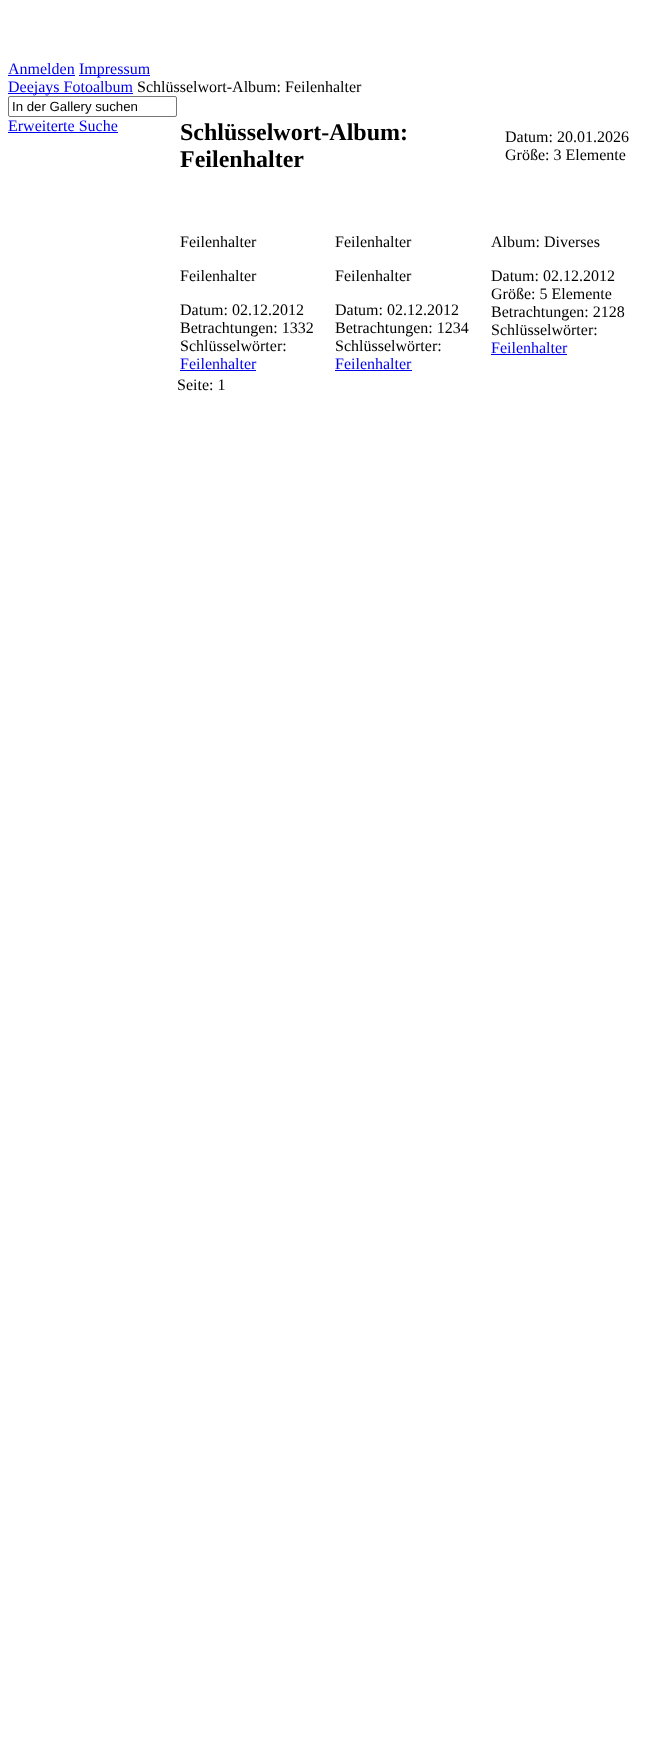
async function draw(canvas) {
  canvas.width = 653;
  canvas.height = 1738;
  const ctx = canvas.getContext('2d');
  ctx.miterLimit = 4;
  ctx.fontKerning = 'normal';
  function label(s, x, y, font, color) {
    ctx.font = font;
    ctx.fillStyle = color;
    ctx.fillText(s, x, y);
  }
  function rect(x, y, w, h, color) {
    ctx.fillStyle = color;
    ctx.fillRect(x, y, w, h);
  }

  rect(0, 0, 653, 1738, '#fff');
  label('Anmelden', 8, 74, '16px Liberation Serif', '#00e');
  rect(8, 75, 67, 1, '#00e');
  rect(79, 75, 71, 1, '#00e');
  label('Impressum', 79, 74, '16px Liberation Serif', '#00e');
  rect(8, 93, 125, 1, '#00e');
  label('Deejays Fotoalbum', 8, 92, '16px Liberation Serif', '#00e');
  label('Schlüsselwort-Album: Feilenhalter', 137, 92, '16px Liberation Serif', '#000');
  ctx.beginPath();
  ctx.roundRect(8.5, 96.5, 168, 20, 1.5);
  ctx.strokeStyle = '#767676';
  ctx.stroke();
  label('In der Gallery suchen', 12, 111, '13.25px Liberation Sans', '#000');
  label('Erweiterte Suche', 8, 131, '16px Liberation Serif', '#00e');
  rect(8, 132, 110, 1, '#00e');
  label('Schlüsselwort-Album:', 180, 140, 'bold 24px Liberation Serif', '#000');
  label('Feilenhalter', 180, 167, 'bold 24px Liberation Serif', '#000');
  label('Datum: 20.01.2026', 505, 142, '16px Liberation Serif', '#000');
  label('Größe: 3 Elemente', 505, 160, '16px Liberation Serif', '#000');
  label('Feilenhalter', 180, 247, '16px Liberation Serif', '#000');
  label('Feilenhalter', 180, 281, '16px Liberation Serif', '#000');
  label('Datum: 02.12.2012', 180, 315, '16px Liberation Serif', '#000');
  label('Betrachtungen: 1332', 180, 333, '16px Liberation Serif', '#000');
  label('Schlüsselwörter:', 180, 351, '16px Liberation Serif', '#000');
  label('Feilenhalter', 180, 369, '16px Liberation Serif', '#00e');
  rect(180, 370, 76, 1, '#00e');
  label('Feilenhalter', 335, 247, '16px Liberation Serif', '#000');
  label('Feilenhalter', 335, 281, '16px Liberation Serif', '#000');
  label('Datum: 02.12.2012', 335, 315, '16px Liberation Serif', '#000');
  label('Betrachtungen: 1234', 335, 333, '16px Liberation Serif', '#000');
  label('Schlüsselwörter:', 335, 351, '16px Liberation Serif', '#000');
  label('Feilenhalter', 335, 369, '16px Liberation Serif', '#00e');
  rect(335, 370, 77, 1, '#00e');
  label('Album: Diverses', 491, 247, '16px Liberation Serif', '#000');
  label('Datum: 02.12.2012', 491, 281, '16px Liberation Serif', '#000');
  label('Größe: 5 Elemente', 491, 299, '16px Liberation Serif', '#000');
  label('Betrachtungen: 2128', 491, 317, '16px Liberation Serif', '#000');
  label('Schlüsselwörter:', 491, 335, '16px Liberation Serif', '#000');
  label('Feilenhalter', 491, 353, '16px Liberation Serif', '#00e');
  rect(491, 354, 76, 1, '#00e');
  label('Seite: 1', 177, 390, '16px Liberation Serif', '#000');
}

draw(document.querySelector('canvas'));
